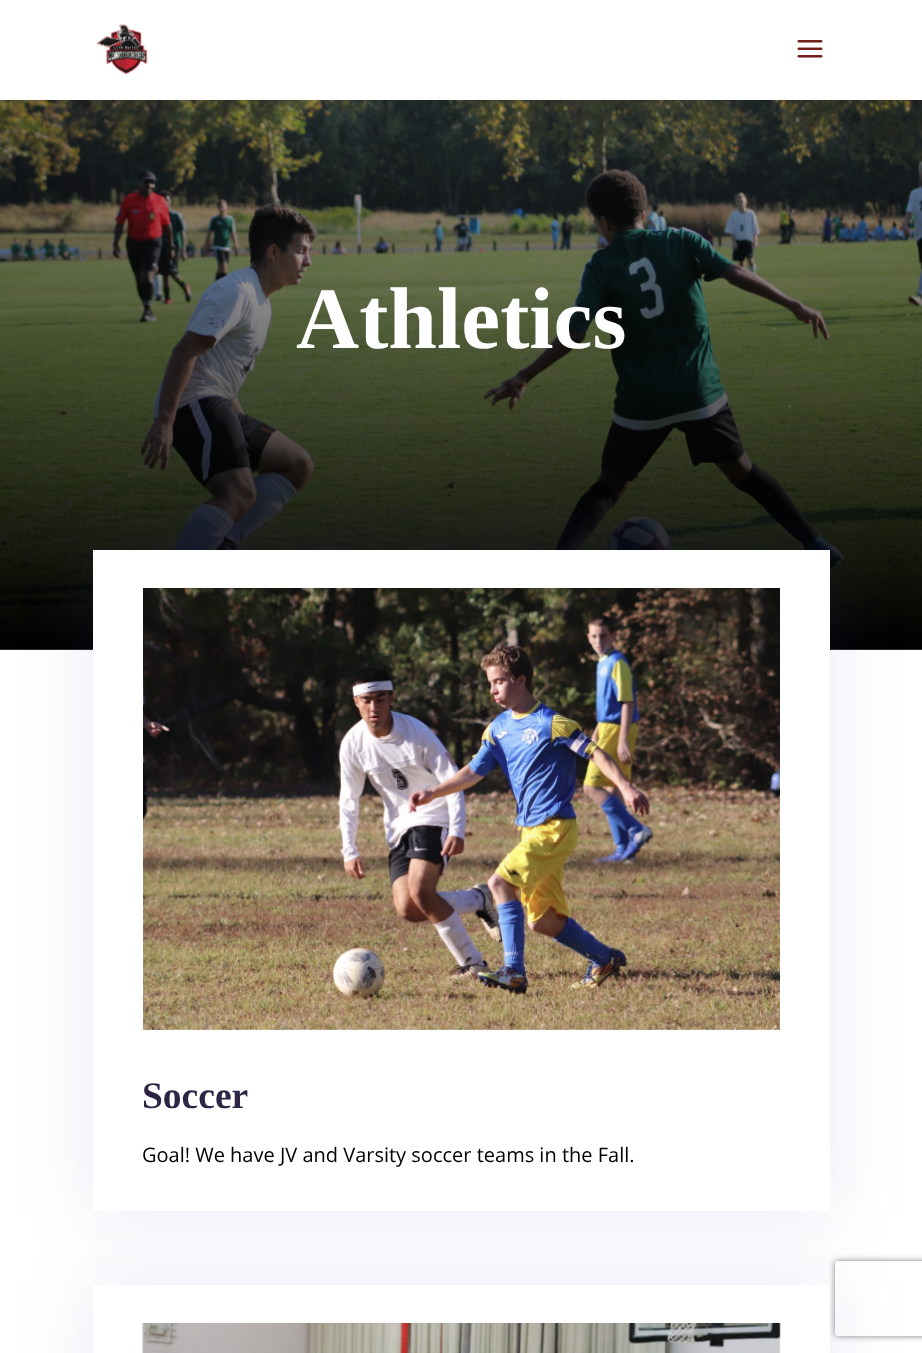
async function draw(canvas) {
  canvas.width = 922;
  canvas.height = 1353;
  const ctx = canvas.getContext('2d');
  ctx.miterLimit = 4;
  ctx.fontKerning = 'normal';
  function label(s, x, y, font, color) {
    ctx.font = font;
    ctx.fillStyle = color;
    ctx.fillText(s, x, y);
  }
  function rect(x, y, w, h, color) {
    ctx.fillStyle = color;
    ctx.fillRect(x, y, w, h);
  }
  async function image(src, x, y, w, h) {
    const img = new Image();
    img.src = src;
    await img.decode();
    ctx.drawImage(img, x, y, w, h);
  }
  let path;

  rect(0, 0, 922, 1353, '#fff');
  await image('assets/img3.png', 0, 100, 922, 550);
  ctx.fillStyle = '#0000001a';
  path = new Path2D('M0 100V101H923V1H922V100Z');
  ctx.fill(path);
  await image('assets/img1.png', 96, 24, 52, 51);
  await image('assets/img2.png', 797, 40, 26, 18);
  label('Athletics', 296, 348, 'bold 87.5px Liberation Serif', '#fff');
  ctx.fillStyle = '#474ab61f';
  ctx.filter = 'blur(37.5px)';
  ctx.beginPath();
  ctx.rect(93, 550, 737, 661);
  ctx.fill();
  ctx.filter = 'none';
  rect(93, 550, 737, 661, '#fff');
  await image('assets/img4.png', 143, 588, 637, 442);
  label('Soccer', 142, 1108, 'bold 37.5px Liberation Serif', '#2e2545');
  label('Goal! We have JV and Varsity soccer teams in the Fall.', 142, 1162, '20px Open Sans', '#000');
  ctx.fillStyle = '#474ab61f';
  ctx.filter = 'blur(37.5px)';
  ctx.beginPath();
  ctx.rect(93, 1285, 737, 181);
  ctx.fill();
  ctx.filter = 'none';
  rect(93, 1285, 737, 68, '#fff');
  await image('assets/img5.png', 142, 1323, 639, 30);
  ctx.save();
  path = new Path2D('M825 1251H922V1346H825ZM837.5 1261H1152.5C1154 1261 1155 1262 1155 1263.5V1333.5C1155 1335 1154 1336 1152.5 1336H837.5C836 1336 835 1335 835 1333.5V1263.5C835 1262 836 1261 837.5 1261Z');
  ctx.clip(path, 'evenodd');
  ctx.fillStyle = '#808080';
  ctx.filter = 'blur(3px)';
  ctx.beginPath();
  ctx.roundRect(835, 1261, 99, 75, 2.5);
  ctx.fill();
  ctx.filter = 'none';
  ctx.restore();
}

draw(document.querySelector('canvas'));
